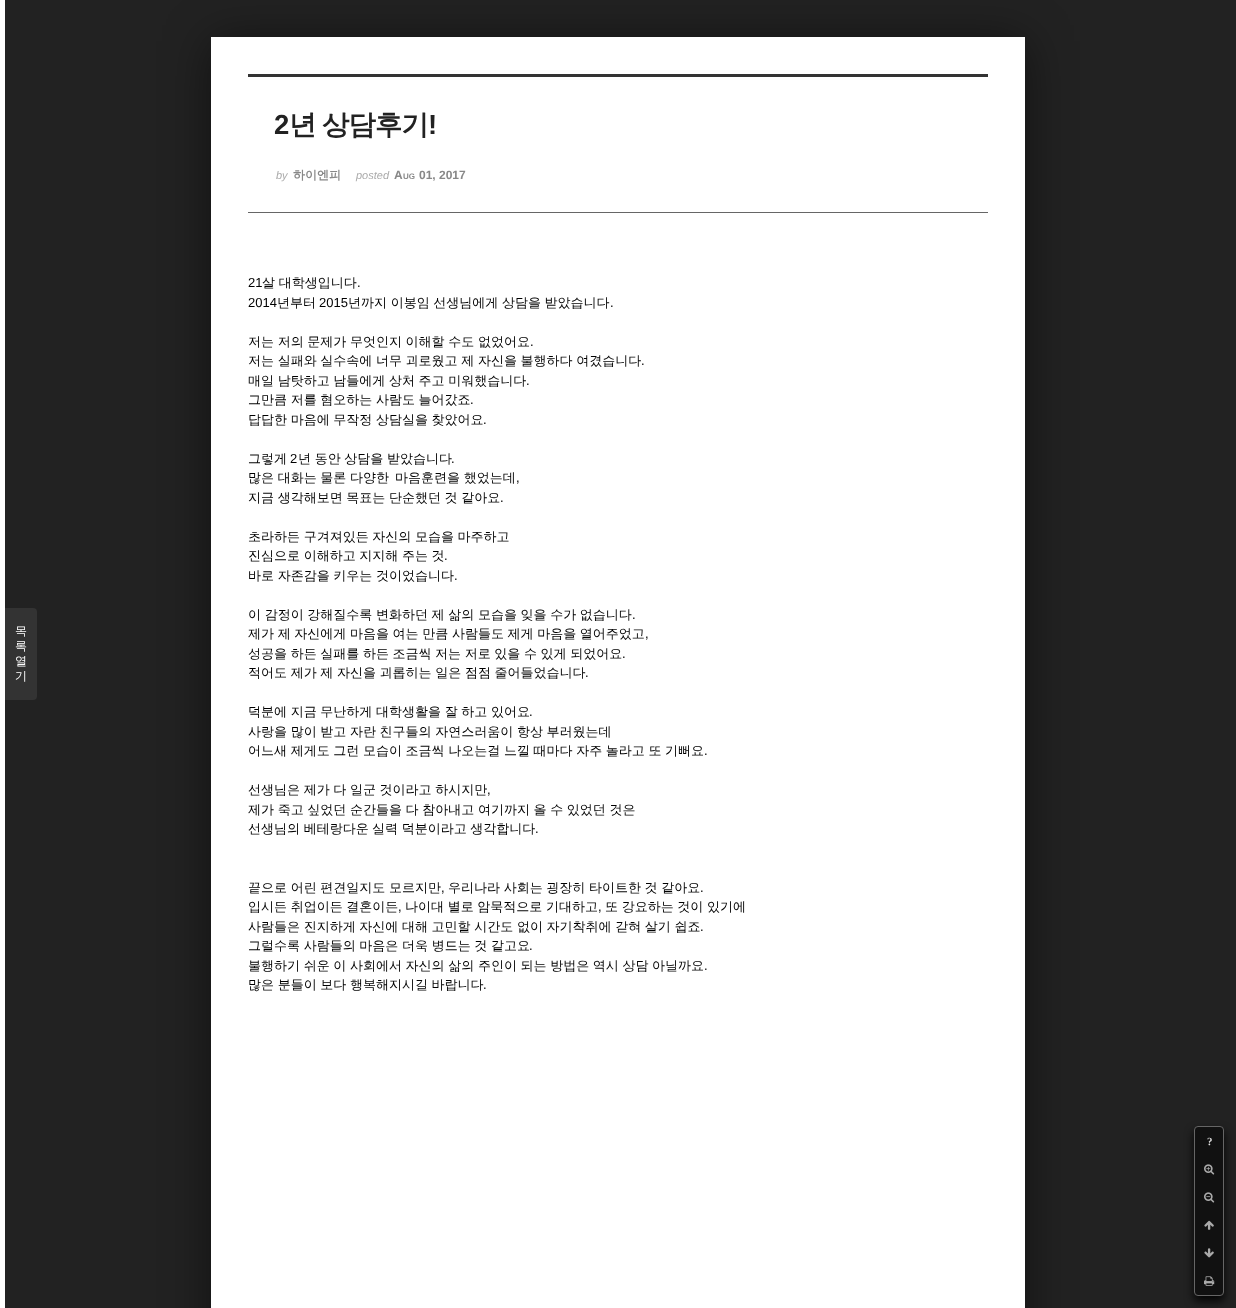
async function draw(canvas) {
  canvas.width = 1236;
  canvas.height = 1308;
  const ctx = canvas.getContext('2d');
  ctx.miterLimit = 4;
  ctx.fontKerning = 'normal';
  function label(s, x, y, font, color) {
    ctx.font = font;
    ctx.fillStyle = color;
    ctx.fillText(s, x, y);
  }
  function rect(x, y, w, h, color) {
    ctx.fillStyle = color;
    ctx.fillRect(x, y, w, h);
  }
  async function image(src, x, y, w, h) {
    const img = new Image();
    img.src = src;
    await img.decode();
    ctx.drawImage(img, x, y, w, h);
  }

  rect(0, 0, 1236, 1308, '#222');
  ctx.fillStyle = '#00000080';
  ctx.filter = 'blur(24px)';
  ctx.beginPath();
  ctx.rect(211, 41, 814, 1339);
  ctx.fill();
  ctx.filter = 'none';
  rect(211, 37, 814, 1271, '#fff');
  rect(0, 0, 5, 1308, '#fff');
  ctx.fillStyle = '#333';
  ctx.beginPath();
  ctx.roundRect(5, 608, 32, 92, [0, 4, 4, 0]);
  ctx.fill();
  label('목', 15, 635, '500 12px WenQuanYi Zen Hei', '#fff');
  label('록', 15, 650, '500 12px WenQuanYi Zen Hei', '#fff');
  label('열', 15, 665, '500 12px WenQuanYi Zen Hei', '#fff');
  label('기', 15, 680, '500 12px WenQuanYi Zen Hei', '#fff');
  rect(248, 74, 740, 3, '#333');
  rect(248, 212, 740, 1, '#666');
  ctx.letterSpacing = '-1px';
  label('2', 274, 134, 'bold 27.5px Liberation Sans', '#222');
  ctx.wordSpacing = '-1px';
  label('년 상담후기', 289, 134, 'bold 27.5px WenQuanYi Zen Hei', '#222');
  ctx.wordSpacing = '0px';
  label('!', 428, 134, 'bold 27.5px Liberation Sans', '#222');
  ctx.letterSpacing = '0px';
  label('by', 276, 179, 'italic 11px Liberation Sans', '#aaa');
  label('하이엔피', 293, 179, 'bold 12px WenQuanYi Zen Hei', '#888');
  label('posted', 356, 179, 'italic 11px Liberation Sans', '#aaa');
  label('A', 394, 179, 'bold 12px Liberation Sans', '#888');
  label('UG', 403, 179, 'bold 8px Liberation Sans', '#888');
  label('01, 2017', 419, 179, 'bold 12px Liberation Sans', '#888');
  ctx.fillStyle = '#000000e6';
  ctx.filter = 'blur(5px)';
  ctx.beginPath();
  ctx.roundRect(1194, 1131, 30, 170, 4);
  ctx.fill();
  ctx.filter = 'none';
  ctx.fillStyle = '#111';
  ctx.beginPath();
  ctx.roundRect(1194.5, 1126.5, 29, 169, 3.5);
  ctx.fill();
  ctx.strokeStyle = '#666';
  ctx.stroke();
  ctx.letterSpacing = '-1px';
  label('?', 1207, 1145, 'bold 11px Liberation Serif', '#ddd');
  await image('assets/img1.png', 1204, 1164, 11, 11);
  await image('assets/img2.png', 1204, 1192, 11, 11);
  await image('assets/img3.png', 1204, 1220, 10, 10);
  await image('assets/img4.png', 1204, 1248, 10, 10);
  await image('assets/img5.png', 1204, 1276, 11, 10);
  ctx.letterSpacing = '0px';
  label('21', 248, 287, '13px Liberation Sans', '#000');
  ctx.wordSpacing = '-0.25px';
  label('살 대학생입니다', 262, 287, '500 13px WenQuanYi Zen Hei', '#000');
  ctx.wordSpacing = '0px';
  label('.', 357, 287, '13px Liberation Sans', '#000');
  label('2014', 248, 307, '13px Liberation Sans', '#000');
  label('년부터', 277, 307, '500 13px WenQuanYi Zen Hei', '#000');
  label('2015', 319, 307, '13px Liberation Sans', '#000');
  ctx.wordSpacing = '-0.25px';
  label('년까지 이봉임 선생님에게 상담을 받았습니다', 348, 307, '500 13px WenQuanYi Zen Hei', '#000');
  ctx.wordSpacing = '0px';
  label('.', 610, 307, '13px Liberation Sans', '#000');
  ctx.wordSpacing = '-0.25px';
  label('저는 저의 문제가 무엇인지 이해할 수도 없었어요', 248, 346, '500 13px WenQuanYi Zen Hei', '#000');
  ctx.wordSpacing = '0px';
  label('.', 530, 346, '13px Liberation Sans', '#000');
  ctx.wordSpacing = '-0.25px';
  label('저는 실패와 실수속에 너무 괴로웠고 제 자신을 불행하다 여겼습니다', 248, 365, '500 13px WenQuanYi Zen Hei', '#000');
  ctx.wordSpacing = '0px';
  label('.', 641, 365, '13px Liberation Sans', '#000');
  ctx.wordSpacing = '-0.25px';
  label('매일 남탓하고 남들에게 상처 주고 미워했습니다', 248, 385, '500 13px WenQuanYi Zen Hei', '#000');
  ctx.wordSpacing = '0px';
  label('.', 526, 385, '13px Liberation Sans', '#000');
  ctx.wordSpacing = '-0.25px';
  label('그만큼 저를 혐오하는 사람도 늘어갔죠', 248, 404, '500 13px WenQuanYi Zen Hei', '#000');
  ctx.wordSpacing = '0px';
  label('.', 470, 404, '13px Liberation Sans', '#000');
  ctx.wordSpacing = '-0.25px';
  label('답답한 마음에 무작정 상담실을 찾았어요', 248, 424, '500 13px WenQuanYi Zen Hei', '#000');
  ctx.wordSpacing = '0px';
  label('.', 483, 424, '13px Liberation Sans', '#000');
  label('그렇게', 248, 463, '500 13px WenQuanYi Zen Hei', '#000');
  label('2', 290, 463, '13px Liberation Sans', '#000');
  ctx.wordSpacing = '-0.25px';
  label('년 동안 상담을 받았습니다', 298, 463, '500 13px WenQuanYi Zen Hei', '#000');
  ctx.wordSpacing = '0px';
  label('.', 451, 463, '13px Liberation Sans', '#000');
  ctx.wordSpacing = '-0.25px';
  label('많은 대화는 물론 다양한', 248, 482, '500 13px WenQuanYi Zen Hei', '#000');
  label('마음훈련을 했었는데', 395, 482, '500 13px WenQuanYi Zen Hei', '#000');
  ctx.wordSpacing = '0px';
  label(',', 516, 482, '13px Liberation Sans', '#000');
  ctx.wordSpacing = '-0.25px';
  label('지금 생각해보면 목표는 단순했던 것 같아요', 248, 502, '500 13px WenQuanYi Zen Hei', '#000');
  ctx.wordSpacing = '0px';
  label('.', 500, 502, '13px Liberation Sans', '#000');
  ctx.wordSpacing = '-0.25px';
  label('초라하든 구겨져있든 자신의 모습을 마주하고', 248, 541, '500 13px WenQuanYi Zen Hei', '#000');
  label('진심으로 이해하고 지지해 주는 것', 248, 560, '500 13px WenQuanYi Zen Hei', '#000');
  ctx.wordSpacing = '0px';
  label('.', 444, 560, '13px Liberation Sans', '#000');
  ctx.wordSpacing = '-0.25px';
  label('바로 자존감을 키우는 것이었습니다', 248, 580, '500 13px WenQuanYi Zen Hei', '#000');
  ctx.wordSpacing = '0px';
  label('.', 454, 580, '13px Liberation Sans', '#000');
  ctx.wordSpacing = '-0.25px';
  label('이 감정이 강해질수록 변화하던 제 삶의 모습을 잊을 수가 없습니다', 248, 619, '500 13px WenQuanYi Zen Hei', '#000');
  ctx.wordSpacing = '0px';
  label('.', 632, 619, '13px Liberation Sans', '#000');
  ctx.wordSpacing = '-0.25px';
  label('제가 제 자신에게 마음을 여는 만큼 사람들도 제게 마음을 열어주었고', 248, 638, '500 13px WenQuanYi Zen Hei', '#000');
  ctx.wordSpacing = '0px';
  label(',', 645, 638, '13px Liberation Sans', '#000');
  ctx.wordSpacing = '-0.25px';
  label('성공을 하든 실패를 하든 조금씩', 248, 658, '500 13px WenQuanYi Zen Hei', '#000');
  label('저는 저로 있을 수 있게 되었어요', 435, 658, '500 13px WenQuanYi Zen Hei', '#000');
  ctx.wordSpacing = '0px';
  label('.', 622, 658, '13px Liberation Sans', '#000');
  ctx.wordSpacing = '-0.25px';
  label('적어도 제가 제 자신을 괴롭히는 일은 점점 줄어들었습니다', 248, 677, '500 13px WenQuanYi Zen Hei', '#000');
  ctx.wordSpacing = '0px';
  label('.', 585, 677, '13px Liberation Sans', '#000');
  ctx.wordSpacing = '-0.25px';
  label('덕분에 지금 무난하게', 248, 716, '500 13px WenQuanYi Zen Hei', '#000');
  label('대학생활을 잘 하고 있어요', 376, 716, '500 13px WenQuanYi Zen Hei', '#000');
  ctx.wordSpacing = '0px';
  label('.', 529, 716, '13px Liberation Sans', '#000');
  ctx.wordSpacing = '-0.25px';
  label('사랑을 많이 받고 자란 친구들의 자연스러움이 항상 부러웠는데', 248, 736, '500 13px WenQuanYi Zen Hei', '#000');
  label('어느새 제게도 그런 모습이 조금씩 나오는걸 느낄 때마다 자주 놀라고 또 기뻐요', 248, 755, '500 13px WenQuanYi Zen Hei', '#000');
  ctx.wordSpacing = '0px';
  label('.', 704, 755, '13px Liberation Sans', '#000');
  ctx.wordSpacing = '-0.25px';
  label('선생님은 제가 다 일군 것이라고 하시지만', 248, 794, '500 13px WenQuanYi Zen Hei', '#000');
  ctx.wordSpacing = '0px';
  label(',', 487, 794, '13px Liberation Sans', '#000');
  ctx.wordSpacing = '-0.25px';
  label('제가 죽고 싶었던 순간들을 다 참아내고 여기까지 올 수 있었던 것은', 248, 814, '500 13px WenQuanYi Zen Hei', '#000');
  label('선생님의 베테랑다운', 248, 833, '500 13px WenQuanYi Zen Hei', '#000');
  label('실력 덕분이라고 생각합니다', 372, 833, '500 13px WenQuanYi Zen Hei', '#000');
  ctx.wordSpacing = '0px';
  label('.', 535, 833, '13px Liberation Sans', '#000');
  ctx.wordSpacing = '-0.25px';
  label('끝으로 어린 편견일지도 모르지만', 248, 892, '500 13px WenQuanYi Zen Hei', '#000');
  ctx.wordSpacing = '0px';
  label(',', 441, 892, '13px Liberation Sans', '#000');
  ctx.wordSpacing = '-0.25px';
  label('우리나라 사회는 굉장히 타이트한 것 같아요', 448, 892, '500 13px WenQuanYi Zen Hei', '#000');
  ctx.wordSpacing = '0px';
  label('.', 700, 892, '13px Liberation Sans', '#000');
  ctx.wordSpacing = '-0.25px';
  label('입시든 취업이든 결혼이든', 248, 911, '500 13px WenQuanYi Zen Hei', '#000');
  ctx.wordSpacing = '0px';
  label(',', 398, 911, '13px Liberation Sans', '#000');
  ctx.wordSpacing = '-0.25px';
  label('나이대 별로 암묵적으로 기대하고', 405, 911, '500 13px WenQuanYi Zen Hei', '#000');
  ctx.wordSpacing = '0px';
  label(',', 598, 911, '13px Liberation Sans', '#000');
  ctx.wordSpacing = '-0.25px';
  label('또 강요하는 것이 있기에', 605, 911, '500 13px WenQuanYi Zen Hei', '#000');
  label('사람들은 진지하게 자신에 대해 고민할 시간도 없이 자기착취에 갇혀 살기 쉽죠', 248, 931, '500 13px WenQuanYi Zen Hei', '#000');
  ctx.wordSpacing = '0px';
  label('.', 700, 931, '13px Liberation Sans', '#000');
  ctx.wordSpacing = '-0.25px';
  label('그럴수록 사람들의 마음은', 248, 950, '500 13px WenQuanYi Zen Hei', '#000');
  label('더욱 병드는 것 같고요', 402, 950, '500 13px WenQuanYi Zen Hei', '#000');
  ctx.wordSpacing = '0px';
  label('.', 529, 950, '13px Liberation Sans', '#000');
  ctx.wordSpacing = '-0.25px';
  label('불행하기 쉬운 이 사회에서 자신의 삶의 주인이 되는 방법은 역시 상담 아닐까요', 248, 970, '500 13px WenQuanYi Zen Hei', '#000');
  ctx.wordSpacing = '0px';
  label('.', 704, 970, '13px Liberation Sans', '#000');
  ctx.wordSpacing = '-0.25px';
  label('많은 분들이 보다 행복해지시길 바랍니다', 248, 989, '500 13px WenQuanYi Zen Hei', '#000');
  ctx.wordSpacing = '0px';
  label('.', 483, 989, '13px Liberation Sans', '#000');
}

draw(document.querySelector('canvas'));
